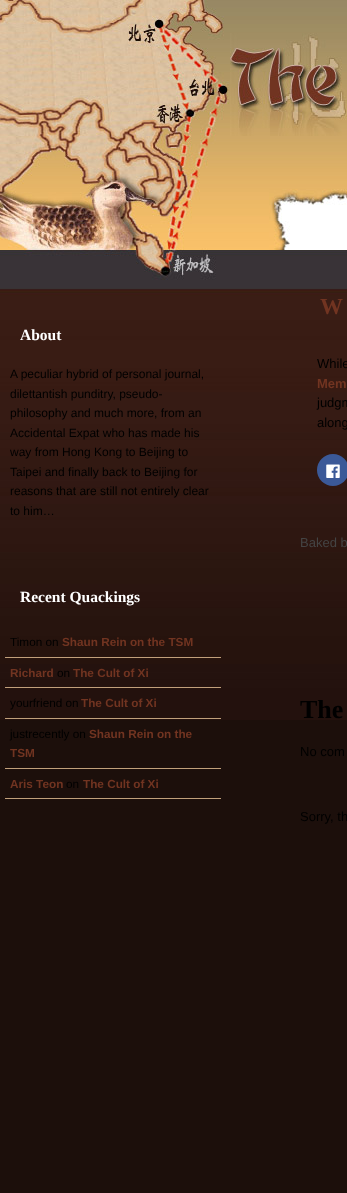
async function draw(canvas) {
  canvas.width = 347;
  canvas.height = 1193;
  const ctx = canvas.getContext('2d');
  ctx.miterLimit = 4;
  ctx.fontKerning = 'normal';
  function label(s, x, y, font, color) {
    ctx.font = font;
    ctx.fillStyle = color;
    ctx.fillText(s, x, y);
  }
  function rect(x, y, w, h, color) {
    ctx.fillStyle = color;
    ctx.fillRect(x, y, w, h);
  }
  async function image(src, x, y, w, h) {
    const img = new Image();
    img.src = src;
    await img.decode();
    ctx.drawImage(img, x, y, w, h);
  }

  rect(0, 0, 347, 1193, '#1c0f0b');
  await image('assets/img1.png', 0, 0, 347, 720);
  await image('assets/img2.png', 0, 0, 229, 280);
  await image('assets/img3.png', 230, 33, 117, 103);
  label('About', 20, 340, 'bold 15.5px Liberation Serif', '#fff');
  label('A peculiar hybrid of personal journal,', 10, 378, '12px Liberation Sans', '#000');
  label('dilettantish punditry, pseudo-', 10, 398, '12px Liberation Sans', '#000');
  label('philosophy and much more, from an', 10, 417, '12px Liberation Sans', '#000');
  label('Accidental Expat who has made his', 10, 437, '12px Liberation Sans', '#000');
  label('way from Hong Kong to Beijing to', 10, 456, '12px Liberation Sans', '#000');
  label('Taipei and finally back to Beijing for', 10, 476, '12px Liberation Sans', '#000');
  label('reasons that are still not entirely clear', 10, 495, '12px Liberation Sans', '#000');
  label('to him…', 10, 515, '12px Liberation Sans', '#000');
  label('Recent Quackings', 20, 602, 'bold 15.5px Liberation Serif', '#fff');
  rect(5, 657, 216, 1, '#c1a07b');
  label('Timon on', 10, 646, '11.75px Liberation Sans', '#000');
  label('Shaun Rein on the TSM', 62, 646, 'bold 11.75px Liberation Sans', '#713421');
  rect(5, 687, 216, 1, '#c1a07b');
  label('Richard', 10, 677, 'bold 11.75px Liberation Sans', '#713421');
  label('on', 57, 677, '11.75px Liberation Sans', '#000');
  label('The Cult of Xi', 73, 677, 'bold 11.75px Liberation Sans', '#713421');
  rect(5, 718, 216, 1, '#c1a07b');
  label('yourfriend on', 10, 707, '11.75px Liberation Sans', '#000');
  label('The Cult of Xi', 81, 707, 'bold 11.75px Liberation Sans', '#713421');
  rect(5, 768, 216, 1, '#c1a07b');
  label('justrecently on', 10, 738, '11.75px Liberation Sans', '#000');
  label('Shaun Rein on the', 89, 738, 'bold 11.75px Liberation Sans', '#713421');
  label('TSM', 10, 757, 'bold 11.75px Liberation Sans', '#713421');
  rect(5, 798, 216, 1, '#c1a07b');
  label('Aris Teon', 10, 788, 'bold 11.75px Liberation Sans', '#713421');
  label('on', 66, 788, '11.75px Liberation Sans', '#000');
  label('The Cult of Xi', 83, 788, 'bold 11.75px Liberation Sans', '#713421');
  await image('assets/img4.png', 269, 189, 78, 61);
  label('W', 320, 314, 'bold 23px Liberation Serif', '#713421');
  label('While', 317, 368, '13px Liberation Sans', '#000');
  label('Mem', 317, 388, 'bold 13px Liberation Sans', '#713421');
  label('judgm', 317, 407, '13px Liberation Sans', '#000');
  label('along', 317, 427, '13px Liberation Sans', '#000');
  ctx.fillStyle = '#3b5998';
  ctx.beginPath();
  ctx.arc(333, 470, 16, 0, 2 * Math.PI);
  ctx.fill();
  await image('assets/img5.png', 326, 464, 14, 14);
  label('Baked b', 300, 547, '13px Liberation Sans', '#444');
  label('The', 300, 718, 'bold 26px Liberation Serif', '#000');
  label('No com', 300, 756, '13px Liberation Sans', '#000');
  label('Sorry, th', 300, 821, '13px Liberation Sans', '#000');
}

draw(document.querySelector('canvas'));
